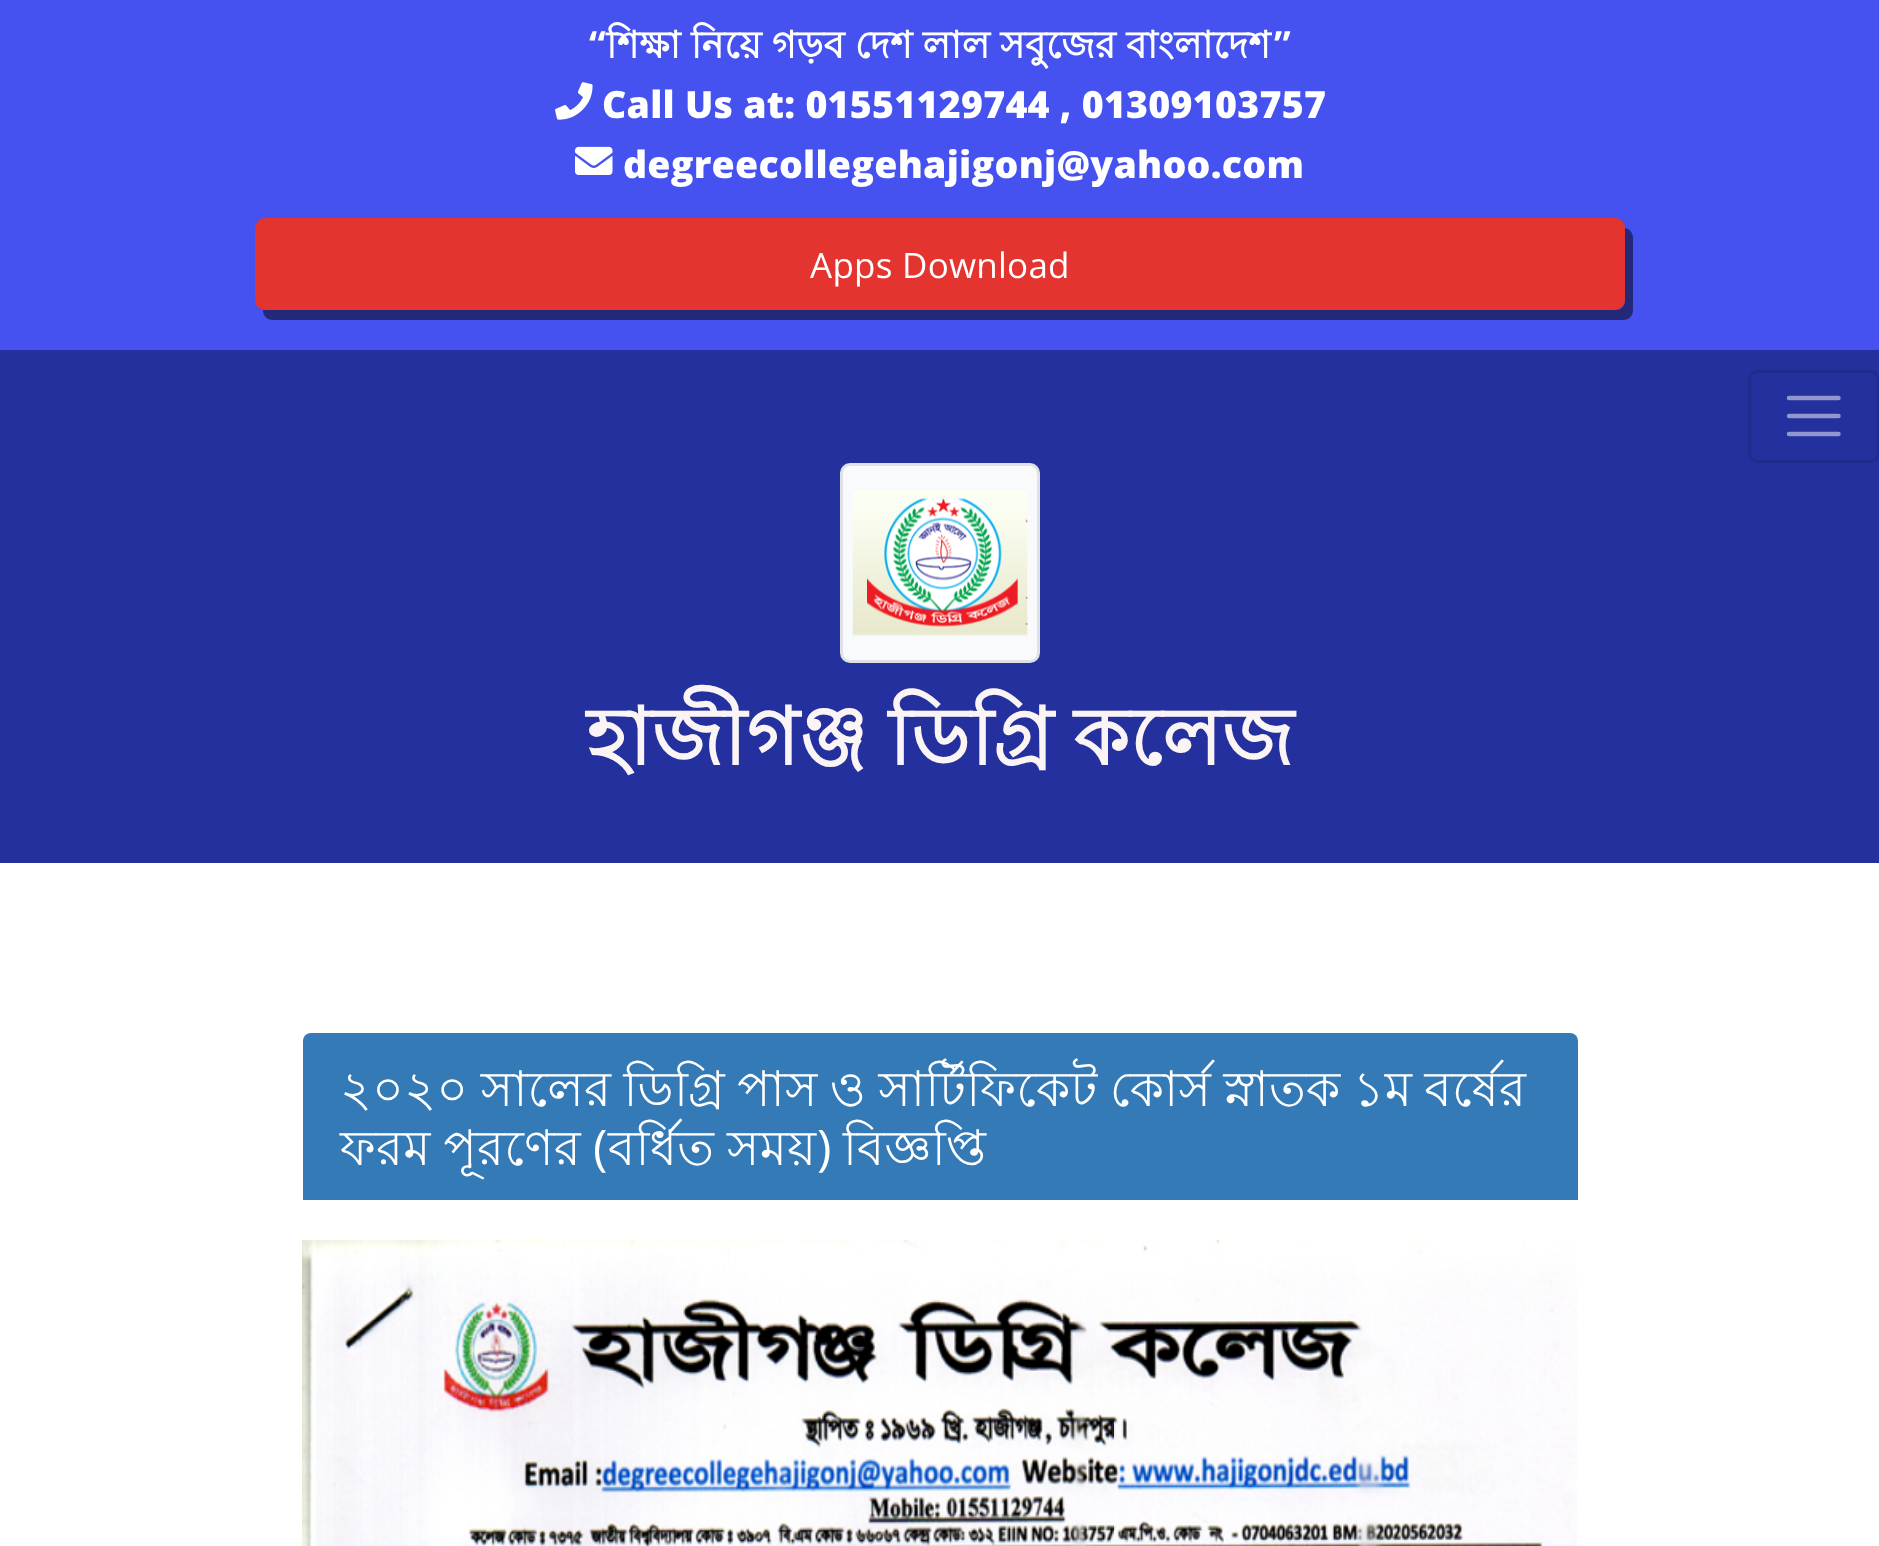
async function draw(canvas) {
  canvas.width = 1879;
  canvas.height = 1546;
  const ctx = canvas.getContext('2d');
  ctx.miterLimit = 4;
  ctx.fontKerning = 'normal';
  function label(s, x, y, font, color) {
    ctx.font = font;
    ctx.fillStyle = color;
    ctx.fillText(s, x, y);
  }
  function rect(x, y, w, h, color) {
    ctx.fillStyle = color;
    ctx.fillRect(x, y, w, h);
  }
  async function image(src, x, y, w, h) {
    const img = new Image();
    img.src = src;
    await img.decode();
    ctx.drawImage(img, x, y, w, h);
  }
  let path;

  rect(0, 0, 1879, 1546, '#fff');
  rect(0, 0, 1879, 350, '#4552ef');
  ctx.letterSpacing = '0.25px';
  label('“', 589, 58, 'bold 37.5px Open Sans', '#fff');
  ctx.wordSpacing = '-0.5px';
  label('শিক্ষা নিয়ে গড়ব দেশ লাল সবুজের বাংলাদেশ', 606, 58, 'bold 37.5px Lohit Bengali', '#fff');
  ctx.wordSpacing = '0px';
  label('”', 1274, 58, 'bold 37.5px Open Sans', '#fff');
  await image('assets/img1.png', 555, 82, 38, 38);
  label('Call Us at: 01551129744 , 01309103757', 602, 118, '800 37.5px Open Sans', '#fff');
  await image('assets/img2.png', 575, 146, 38, 29);
  label('degreecollegehajigonj@yahoo.com', 623, 178, '800 37.5px Open Sans', '#fff');
  ctx.fillStyle = '#232978';
  path = new Path2D('M263 310C263 316 267 320 273 320H1623C1629 320 1633 316 1633 310V238C1633 233 1630 229 1625 228V300C1625 306 1621 310 1615 310Z');
  ctx.fill(path);
  ctx.fillStyle = '#e3342f';
  ctx.beginPath();
  ctx.roundRect(256.5, 219.5, 1367, 89, 8.5);
  ctx.fill();
  ctx.strokeStyle = '#e3342f';
  ctx.lineWidth = 3;
  ctx.stroke();
  label('Apps Download', 810, 278, '35px Open Sans', '#fff');
  rect(0, 350, 1879, 513, '#23309e');
  ctx.beginPath();
  ctx.roundRect(1749.5, 371.5, 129, 90, 8.5);
  ctx.strokeStyle = '#202b8e';
  ctx.stroke();
  path = new Path2D('M1789 398H1838.5M1789 416H1838.5M1789 434H1838.5');
  ctx.strokeStyle = '#9198cf';
  ctx.lineWidth = 4.5;
  ctx.lineCap = 'round';
  ctx.stroke(path);
  ctx.fillStyle = '#f8fafc';
  ctx.beginPath();
  ctx.roundRect(841.5, 464.5, 197, 197, 8.5);
  ctx.fill();
  ctx.strokeStyle = '#dee2e6';
  ctx.lineWidth = 3;
  ctx.stroke();
  await image('assets/img3.png', 852, 490, 176, 146);
  ctx.wordSpacing = '-2px';
  label('হাজীগঞ্জ ডিগ্রি কলেজ', 586, 765, 'bold 80px Lohit Bengali', '#fbf4f4');
  ctx.fillStyle = '#337ab7';
  ctx.beginPath();
  ctx.roundRect(303, 1033, 1275, 167, [8, 8, 0, 0]);
  ctx.fill();
  ctx.wordSpacing = '-1.5px';
  label('২০২০ সালের ডিগ্রি পাস ও সার্টিফিকেট কোর্স স্নাতক ১ম বর্ষের', 340, 1106, '49px Lohit Bengali', '#fff');
  ctx.wordSpacing = '-1px';
  label('ফরম পূরণের', 340, 1165, '49px Lohit Bengali', '#fff');
  ctx.wordSpacing = '0px';
  label('(', 593, 1165, '49px Open Sans', '#fff');
  ctx.wordSpacing = '-1px';
  label('বর্ধিত সময়', 608, 1165, '49px Lohit Bengali', '#fff');
  ctx.wordSpacing = '0px';
  label(')', 817, 1165, '49px Open Sans', '#fff');
  label('বিজ্ঞপ্তি', 843, 1165, '49px Lohit Bengali', '#fff');
  await image('assets/img4.png', 302, 1240, 1275, 306);
}

draw(document.querySelector('canvas'));
